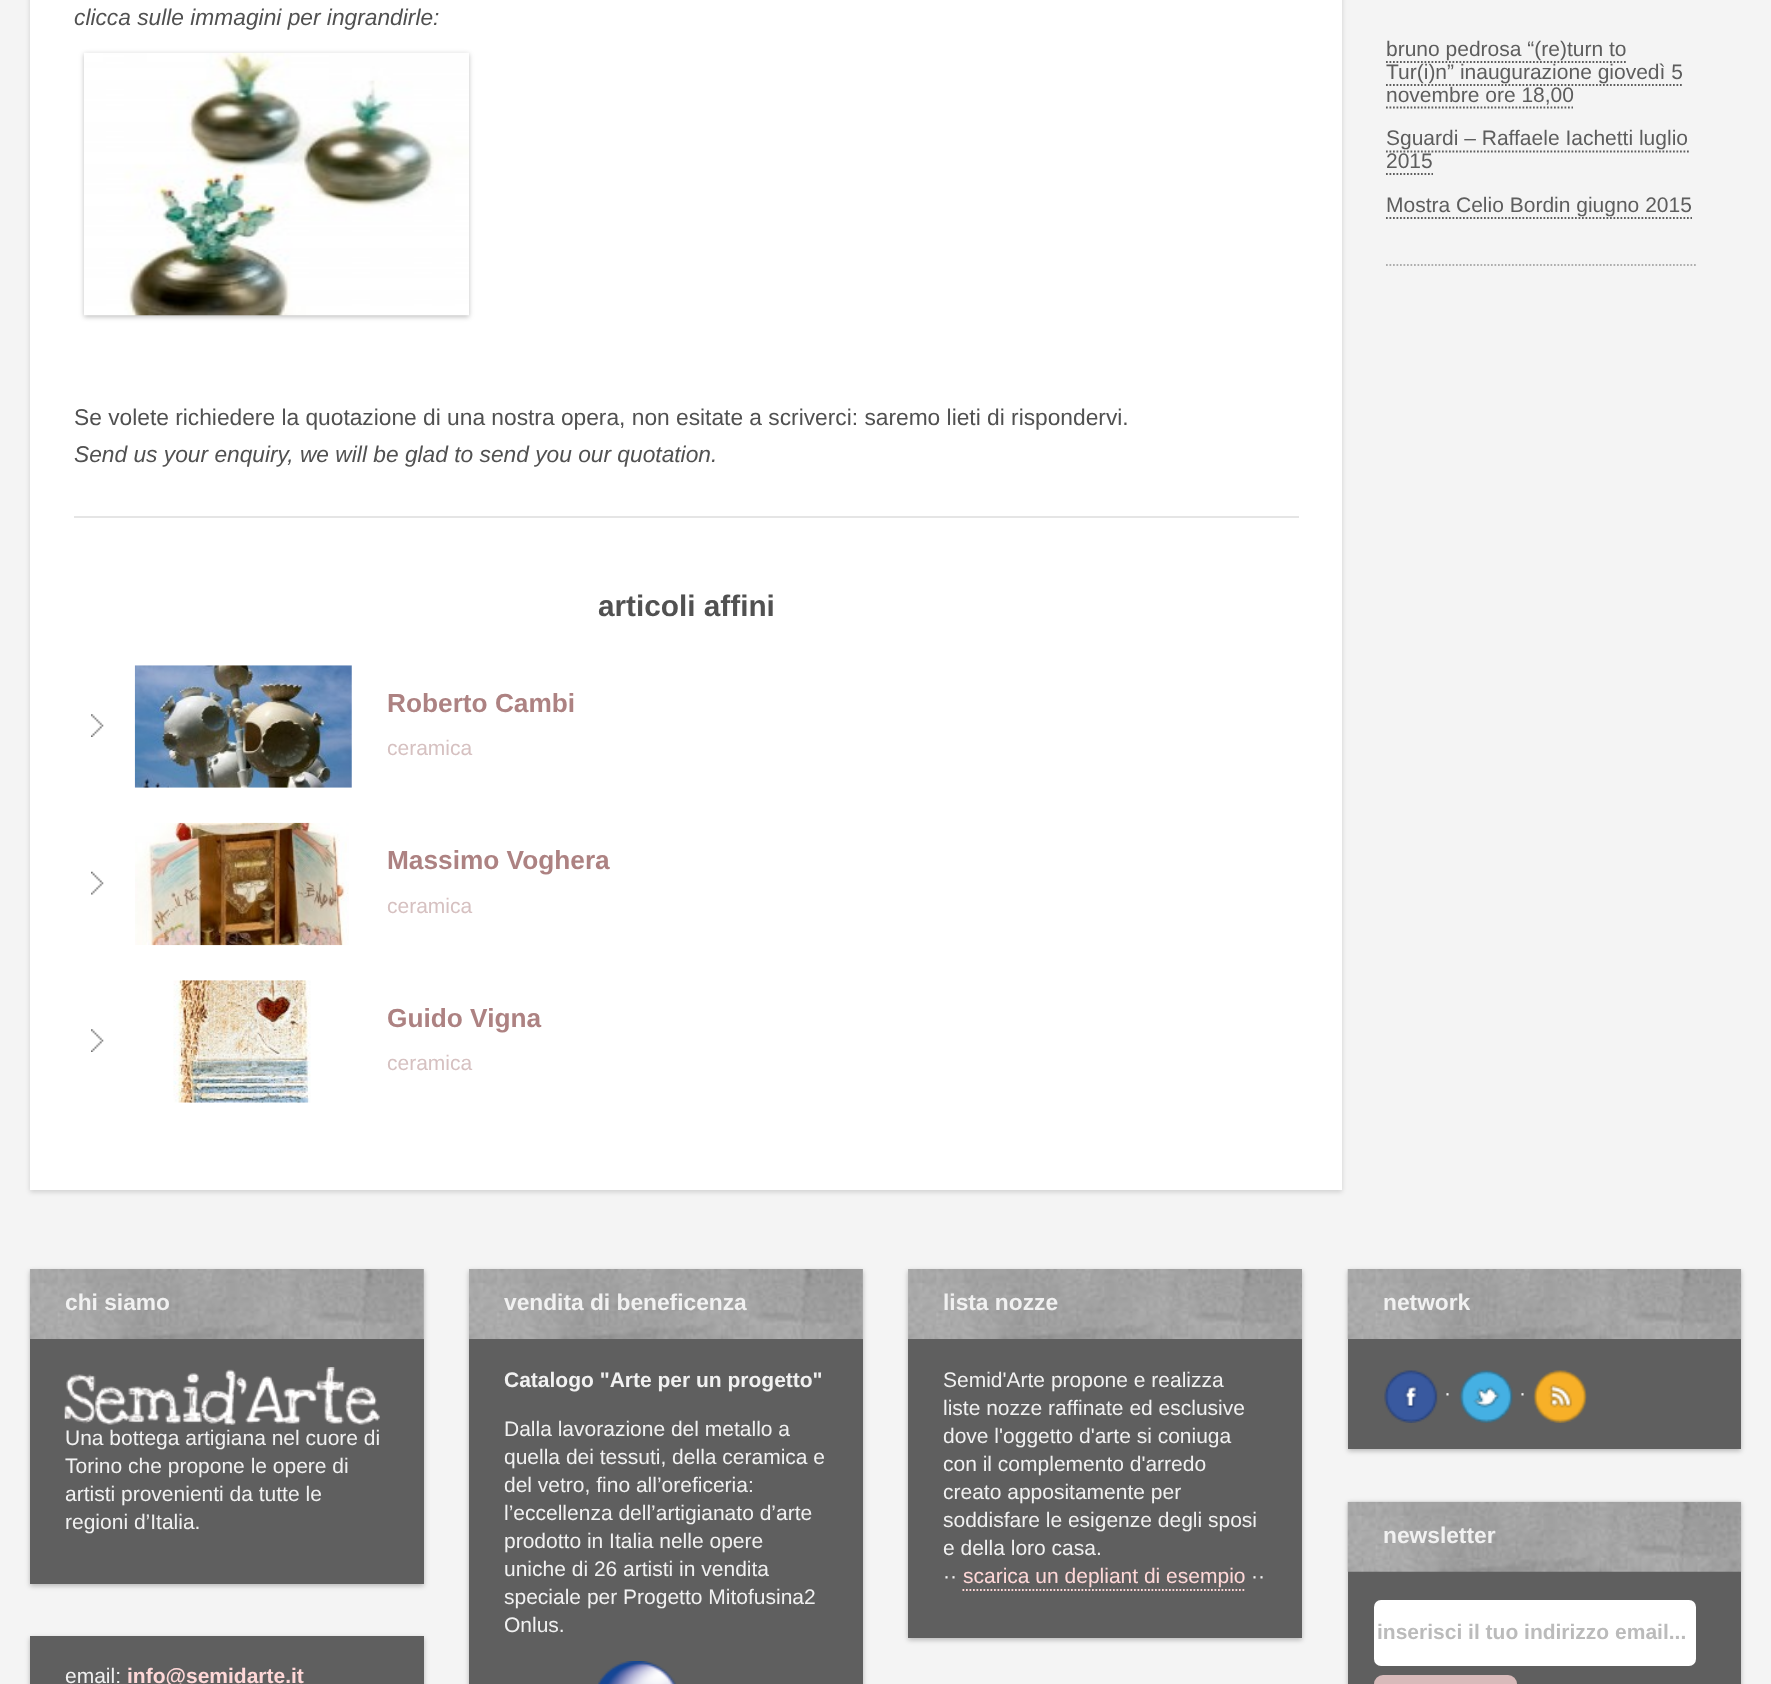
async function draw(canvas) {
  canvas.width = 1771;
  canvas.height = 1684;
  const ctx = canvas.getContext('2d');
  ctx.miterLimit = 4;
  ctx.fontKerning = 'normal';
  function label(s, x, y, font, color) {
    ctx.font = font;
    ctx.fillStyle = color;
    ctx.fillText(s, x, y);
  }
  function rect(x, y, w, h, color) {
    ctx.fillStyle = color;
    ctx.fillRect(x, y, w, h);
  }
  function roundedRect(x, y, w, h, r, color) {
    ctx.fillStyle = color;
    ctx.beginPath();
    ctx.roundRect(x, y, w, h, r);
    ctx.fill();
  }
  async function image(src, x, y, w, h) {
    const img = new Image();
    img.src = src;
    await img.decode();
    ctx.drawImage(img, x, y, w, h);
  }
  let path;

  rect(0, 0, 1771, 1684, '#f4f4f4');
  ctx.fillStyle = '#00000026';
  ctx.filter = 'blur(2.5px)';
  ctx.beginPath();
  ctx.rect(30, -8, 1312, 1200);
  ctx.fill();
  ctx.filter = 'none';
  rect(30, 0, 1312, 1190, '#fff');
  rect(74, 516, 1225, 2, '#e5e5e5');
  label('clicca sulle immagini per ingrandirle:', 74, 25, 'italic 22.75px Liberation Sans', '#515151');
  ctx.fillStyle = '#00000040';
  ctx.filter = 'blur(2.5px)';
  ctx.beginPath();
  ctx.rect(84, 54, 385, 263);
  ctx.fill();
  ctx.filter = 'none';
  await image('assets/img1.png', 84, 52, 385, 264);
  label('Se volete richiedere la quotazione di una nostra opera, non esitate a scriverci: saremo lieti di rispondervi.', 74, 425, '22.75px Liberation Sans', '#515151');
  label('Send us your enquiry, we will be glad to send you our quotation.', 74, 462, 'italic 22.75px Liberation Sans', '#515151');
  label('articoli affini', 598, 616, 'bold 29.75px Liberation Sans', '#515151');
  await image('assets/img2.png', 91, 714, 13, 23);
  await image('assets/img3.png', 134, 665, 218, 123);
  label('Roberto Cambi', 387, 712, 'bold 26.25px Liberation Sans', '#ad8282');
  label('ceramica', 387, 755, '21px Liberation Sans', '#d6c1c1');
  await image('assets/img4.png', 91, 871, 13, 24);
  await image('assets/img5.png', 135, 822, 214, 124);
  label('Massimo Voghera', 387, 869, 'bold 26.25px Liberation Sans', '#ad8282');
  label('ceramica', 387, 913, '21px Liberation Sans', '#d6c1c1');
  await image('assets/img6.png', 91, 1029, 13, 23);
  await image('assets/img7.png', 173, 980, 138, 123);
  label('Guido Vigna', 387, 1027, 'bold 26.25px Liberation Sans', '#ad8282');
  label('ceramica', 387, 1070, '21px Liberation Sans', '#d6c1c1');
  path = new Path2D('M1386 265H1697.5');
  ctx.strokeStyle = '#aeaeae';
  ctx.lineWidth = 1.8;
  ctx.setLineDash([1.75, 1.75]);
  ctx.stroke(path);
  label('bruno pedrosa “(re)turn to', 1386, 56, '21px Liberation Sans', '#5d5d5d');
  path = new Path2D('M1386 62H1626');
  ctx.strokeStyle = '#5d5d5d';
  ctx.stroke(path);
  label('Tur(i)n” inaugurazione giovedì 5', 1386, 79, '21px Liberation Sans', '#5d5d5d');
  label('novembre ore 18,00', 1386, 102, '21px Liberation Sans', '#5d5d5d');
  path = new Path2D('M1386 85H1683.5');
  ctx.stroke(path);
  path = new Path2D('M1386 107.5H1573');
  ctx.stroke(path);
  label('Sguardi – Raffaele Iachetti luglio', 1386, 145, '21px Liberation Sans', '#5d5d5d');
  label('2015', 1386, 168, '21px Liberation Sans', '#5d5d5d');
  path = new Path2D('M1386 151.5H1689');
  ctx.stroke(path);
  path = new Path2D('M1386 174H1433');
  ctx.stroke(path);
  label('Mostra Celio Bordin giugno 2015', 1386, 212, '21px Liberation Sans', '#5d5d5d');
  path = new Path2D('M1386 218H1692');
  ctx.stroke(path);
  ctx.fillStyle = '#00000040';
  ctx.filter = 'blur(2.5px)';
  ctx.beginPath();
  ctx.rect(30, 1271, 394, 315);
  ctx.fill();
  ctx.filter = 'none';
  rect(30, 1339, 394, 245, '#5f5f5f');
  rect(423, 1269, 1, 70, '#aeaeae');
  await image('assets/img8.png', 29, 1269, 395, 70);
  label('chi siamo', 65, 1310, 'bold 22.75px Liberation Sans', '#f1f1f1');
  await image('assets/img9.png', 64, 1367, 316, 58);
  label('Una bottega artigiana nel cuore di', 65, 1445, '21px Liberation Sans', '#f1f1f1');
  label('Torino che propone le opere di', 65, 1473, '21px Liberation Sans', '#f1f1f1');
  label('artisti provenienti da tutte le', 65, 1501, '21px Liberation Sans', '#f1f1f1');
  label('regioni d’Italia.', 65, 1529, '21px Liberation Sans', '#f1f1f1');
  ctx.fillStyle = '#00000040';
  ctx.filter = 'blur(2.5px)';
  ctx.beginPath();
  ctx.rect(30, 1638, 394, 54);
  ctx.fill();
  ctx.filter = 'none';
  rect(30, 1636, 394, 48, '#5f5f5f');
  label('email:', 65, 1683, '21px Liberation Sans', '#f1f1f1');
  label('info@semidarte.it', 127, 1683, 'bold 21px Liberation Sans', '#ffd8d8');
  ctx.fillStyle = '#00000040';
  ctx.filter = 'blur(2.5px)';
  ctx.beginPath();
  ctx.rect(469, 1271, 394, 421);
  ctx.fill();
  ctx.filter = 'none';
  rect(469, 1339, 394, 345, '#5f5f5f');
  rect(862, 1269, 1, 70, '#aeaeae');
  await image('assets/img10.png', 469, 1269, 394, 70);
  label('vendita di beneficenza', 504, 1310, 'bold 22.75px Liberation Sans', '#f1f1f1');
  label('Catalogo "Arte per un progetto"', 504, 1387, 'bold 21px Liberation Sans', '#f1f1f1');
  label('Dalla lavorazione del metallo a', 504, 1436, '21px Liberation Sans', '#f1f1f1');
  label('quella dei tessuti, della ceramica e', 504, 1464, '21px Liberation Sans', '#f1f1f1');
  label('del vetro, fino all’oreficeria:', 504, 1492, '21px Liberation Sans', '#f1f1f1');
  label('l’eccellenza dell’artigianato d’arte', 504, 1520, '21px Liberation Sans', '#f1f1f1');
  label('prodotto in Italia nelle opere', 504, 1548, '21px Liberation Sans', '#f1f1f1');
  label('uniche di 26 artisti in vendita', 504, 1576, '21px Liberation Sans', '#f1f1f1');
  label('speciale per Progetto Mitofusina2', 504, 1604, '21px Liberation Sans', '#f1f1f1');
  label('Onlus.', 504, 1632, '21px Liberation Sans', '#f1f1f1');
  await image('assets/img11.png', 598, 1661, 78, 23);
  ctx.fillStyle = '#00000040';
  ctx.filter = 'blur(2.5px)';
  ctx.beginPath();
  ctx.rect(908, 1271, 394, 369);
  ctx.fill();
  ctx.filter = 'none';
  rect(908, 1339, 394, 299, '#5f5f5f');
  rect(908, 1269, 1, 70, '#aeaeae');
  await image('assets/img12.png', 908, 1269, 394, 70);
  label('lista nozze', 943, 1310, 'bold 22.75px Liberation Sans', '#f1f1f1');
  label('Semid\'Arte propone e realizza', 943, 1387, '21px Liberation Sans', '#f1f1f1');
  label('liste nozze raffinate ed esclusive', 943, 1415, '21px Liberation Sans', '#f1f1f1');
  label('dove l\'oggetto d\'arte si coniuga', 943, 1443, '21px Liberation Sans', '#f1f1f1');
  label('con il complemento d\'arredo', 943, 1471, '21px Liberation Sans', '#f1f1f1');
  label('creato appositamente per', 943, 1499, '21px Liberation Sans', '#f1f1f1');
  label('soddisfare le esigenze degli sposi', 943, 1527, '21px Liberation Sans', '#f1f1f1');
  label('e della loro casa.', 943, 1555, '21px Liberation Sans', '#f1f1f1');
  label('··', 943, 1583, '21px Liberation Sans', '#f1f1f1');
  label('scarica un depliant di esempio', 963, 1583, '21px Liberation Sans', '#ffd8d8');
  path = new Path2D('M962.5 1590H1246');
  ctx.strokeStyle = '#ffd8d8';
  ctx.stroke(path);
  label('··', 1251, 1583, '21px Liberation Sans', '#f1f1f1');
  ctx.fillStyle = '#00000040';
  ctx.filter = 'blur(2.5px)';
  ctx.beginPath();
  ctx.rect(1348, 1271, 393, 180);
  ctx.fill();
  ctx.filter = 'none';
  rect(1348, 1339, 393, 110, '#5f5f5f');
  await image('assets/img13.png', 1347, 1269, 395, 70);
  label('network', 1383, 1310, 'bold 22.75px Liberation Sans', '#f1f1f1');
  await image('assets/img14.png', 1384, 1370, 54, 53);
  label('·', 1444, 1400, '21px Liberation Sans', '#f1f1f1');
  await image('assets/img15.png', 1459, 1370, 54, 53);
  label('·', 1519, 1400, '21px Liberation Sans', '#f1f1f1');
  await image('assets/img16.png', 1533, 1370, 54, 53);
  ctx.fillStyle = '#00000040';
  ctx.filter = 'blur(2.5px)';
  ctx.beginPath();
  ctx.rect(1348, 1503, 393, 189);
  ctx.fill();
  ctx.filter = 'none';
  rect(1348, 1571, 393, 113, '#5f5f5f');
  await image('assets/img17.png', 1347, 1501, 395, 71);
  label('newsletter', 1383, 1543, 'bold 22.75px Liberation Sans', '#f1f1f1');
  roundedRect(1374, 1600, 322, 66, 7, '#fff');
  label('inserisci il tuo indirizzo email...', 1377, 1639, 'bold 21px Liberation Sans', '#bbb');
  roundedRect(1374, 1675, 143, 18, 9, '#d8baba');
}

draw(document.querySelector('canvas'));
